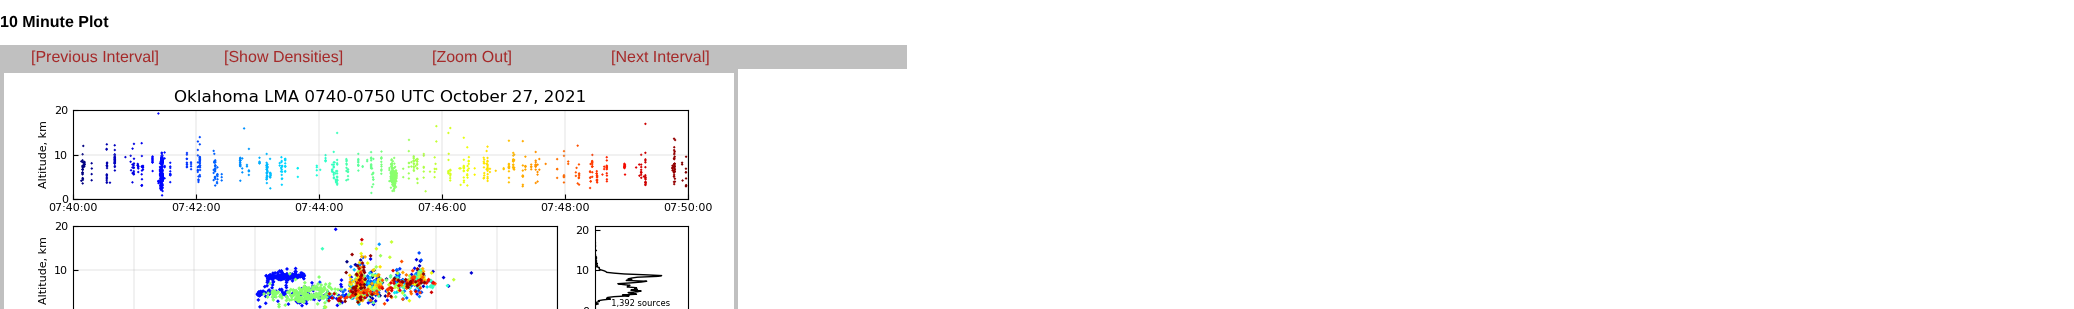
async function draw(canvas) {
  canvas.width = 2074;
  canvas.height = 309;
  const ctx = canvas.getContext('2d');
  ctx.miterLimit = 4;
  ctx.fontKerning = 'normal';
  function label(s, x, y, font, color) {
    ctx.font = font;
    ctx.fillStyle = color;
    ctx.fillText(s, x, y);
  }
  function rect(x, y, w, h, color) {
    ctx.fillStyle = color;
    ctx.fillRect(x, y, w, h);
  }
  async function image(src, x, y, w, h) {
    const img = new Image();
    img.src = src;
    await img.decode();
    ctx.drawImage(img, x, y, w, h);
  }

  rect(0, 0, 2074, 309, '#fff');
  label('10 Minute Plot', 0, 27, 'bold 16px Liberation Sans', '#000');
  rect(0, 45, 907, 24, '#c0c0c0');
  label('[Previous Interval]', 31, 62, '16px Liberation Sans', '#a52a2a');
  label('[Show Densities]', 224, 62, '16px Liberation Sans', '#a52a2a');
  label('[Zoom Out]', 432, 62, '16px Liberation Sans', '#a52a2a');
  label('[Next Interval]', 611, 62, '16px Liberation Sans', '#a52a2a');
  await image('assets/img1.png', 0, 69, 738, 240);
}

draw(document.querySelector('canvas'));
